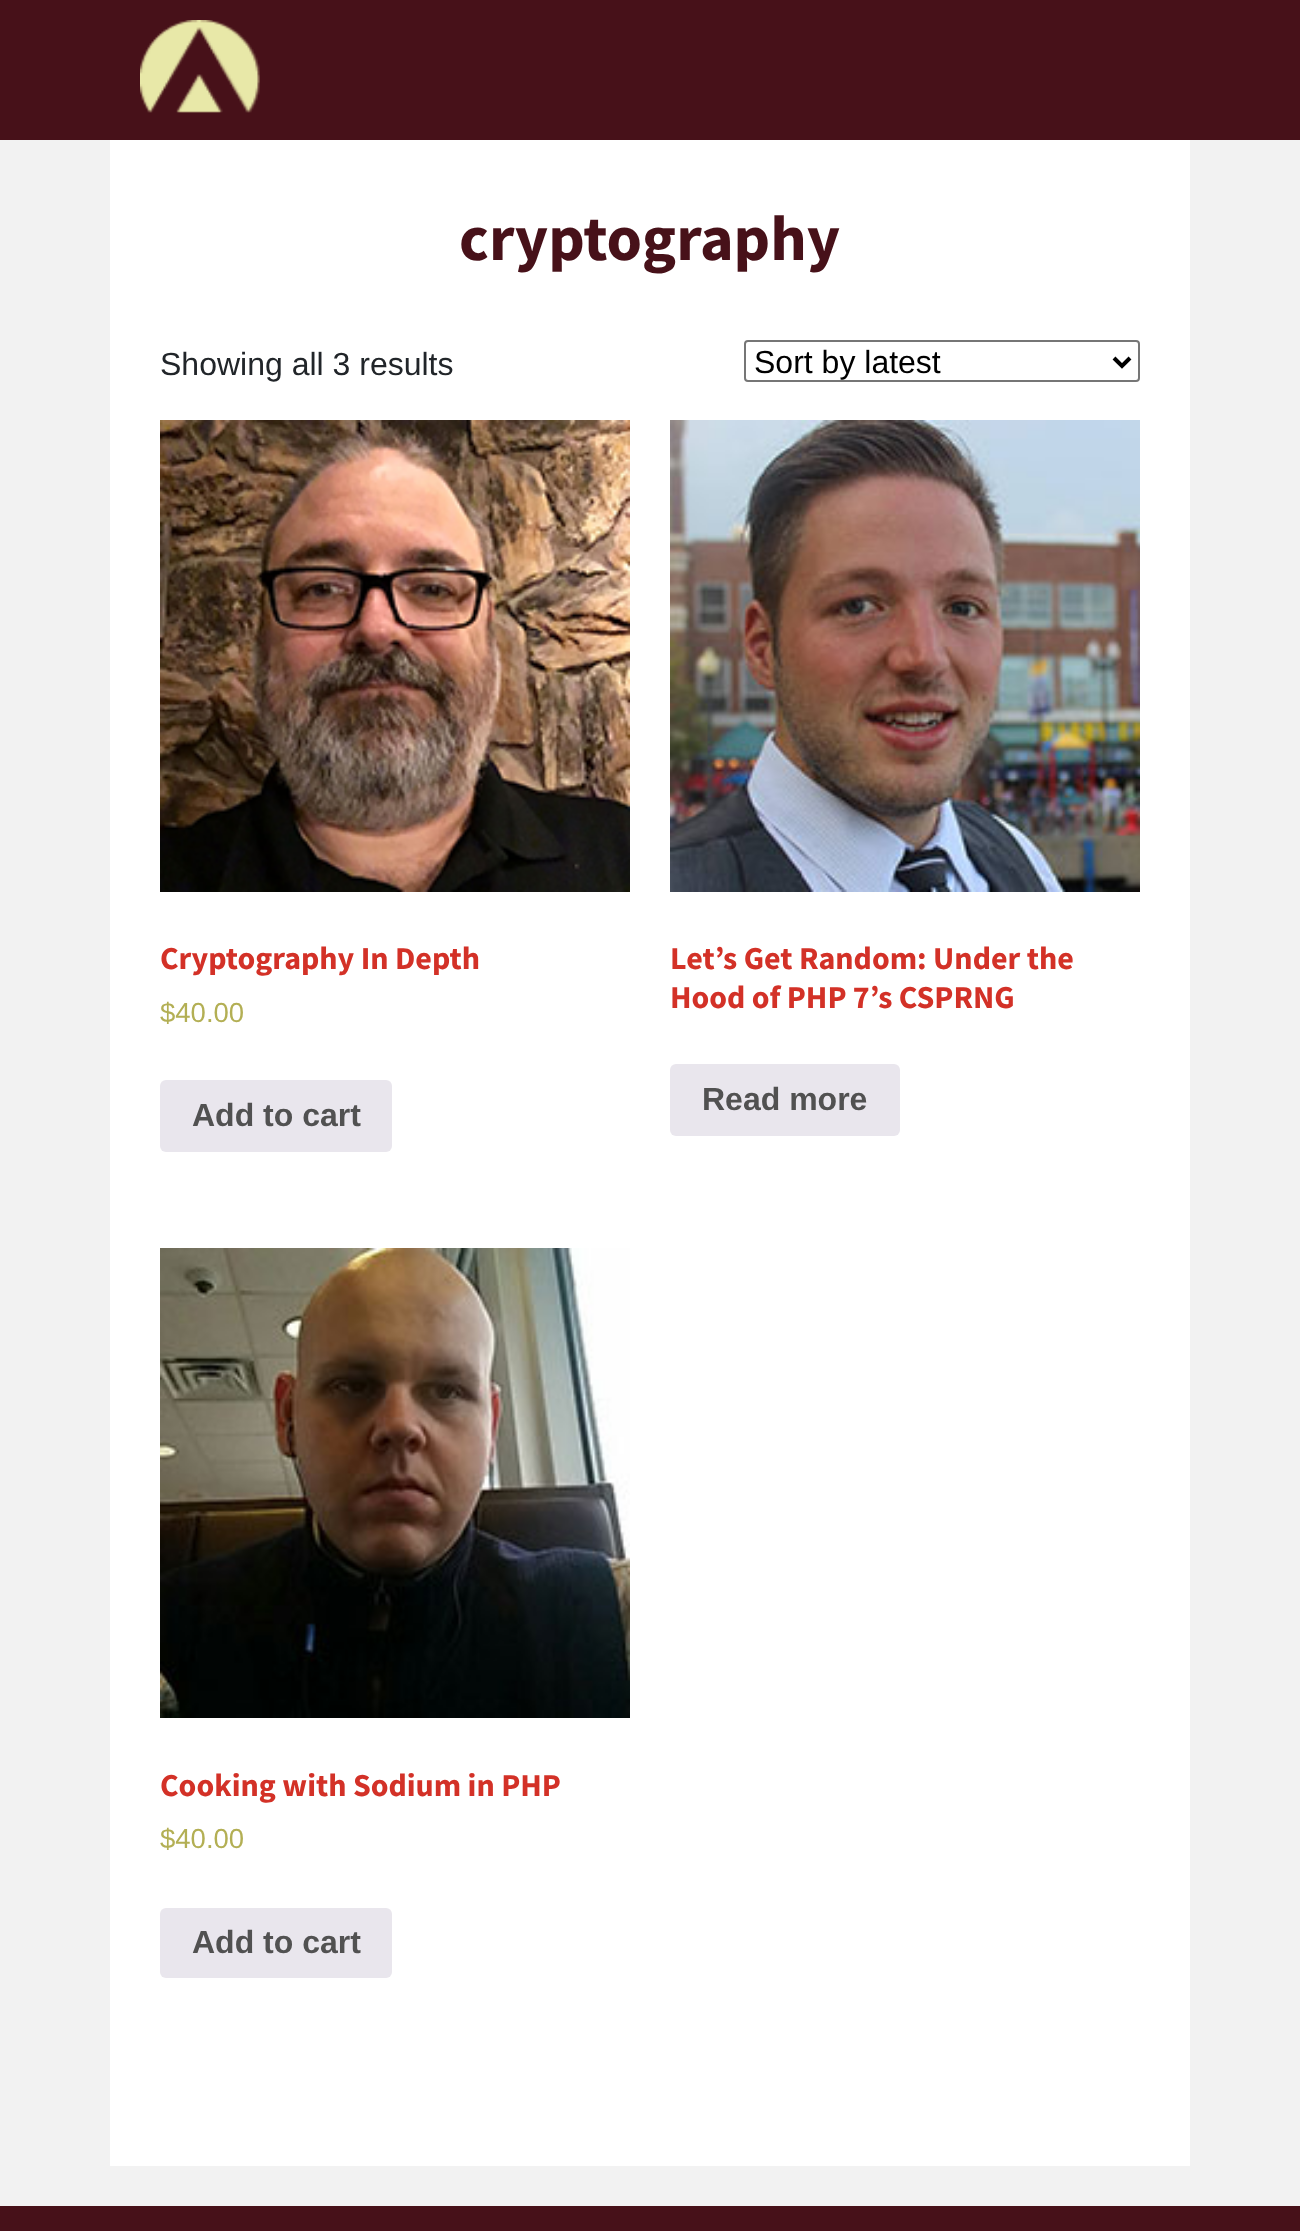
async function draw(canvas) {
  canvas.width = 1300;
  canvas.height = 2231;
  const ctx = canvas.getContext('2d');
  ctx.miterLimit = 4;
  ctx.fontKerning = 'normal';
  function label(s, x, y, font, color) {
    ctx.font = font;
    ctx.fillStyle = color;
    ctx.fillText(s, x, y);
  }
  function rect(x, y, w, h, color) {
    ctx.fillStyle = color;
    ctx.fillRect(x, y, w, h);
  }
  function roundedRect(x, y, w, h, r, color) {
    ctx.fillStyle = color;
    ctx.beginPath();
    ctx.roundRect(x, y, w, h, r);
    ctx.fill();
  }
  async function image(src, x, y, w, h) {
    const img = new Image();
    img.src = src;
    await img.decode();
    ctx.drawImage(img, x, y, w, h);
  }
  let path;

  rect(0, 0, 1300, 2231, '#f2f2f2');
  rect(0, 0, 1300, 140, '#471119');
  await image('assets/img1.png', 140, 20, 120, 93);
  rect(110, 140, 1080, 2026, '#fff');
  label('cryptography', 459, 260, 'bold 64px Source Sans Pro', '#471119');
  label('Showing all 3 results', 160, 375, '32px Liberation Sans', '#212529');
  ctx.beginPath();
  ctx.roundRect(745, 341, 394, 40, 3);
  ctx.strokeStyle = '#767676';
  ctx.lineWidth = 2;
  ctx.stroke();
  path = new Path2D('M1114 358L1122 366L1130 358');
  ctx.strokeStyle = '#000';
  ctx.lineWidth = 4;
  ctx.stroke(path);
  label('Sort by latest', 754, 373, '32px Liberation Sans', '#000');
  await image('assets/img2.png', 160, 420, 470, 472);
  label('Cryptography In Depth', 160, 969, 'bold 32px Source Sans Pro', '#d33127');
  label('$40.00', 160, 1022, '27.5px Liberation Sans', '#b3af54');
  roundedRect(160, 1080, 232, 72, 6, '#e9e6ed');
  label('Add to cart', 192, 1126, 'bold 32px Liberation Sans', '#515151');
  await image('assets/img3.png', 670, 420, 470, 472);
  label('Let’s Get Random: Under the', 670, 969, 'bold 32px Source Sans Pro', '#d33127');
  label('Hood of PHP 7’s CSPRNG', 670, 1008, 'bold 32px Source Sans Pro', '#d33127');
  roundedRect(670, 1064, 230, 72, 6, '#e9e6ed');
  label('Read more', 702, 1110, 'bold 32px Liberation Sans', '#515151');
  await image('assets/img4.png', 160, 1248, 470, 470);
  label('Cooking with Sodium in PHP', 160, 1796, 'bold 32px Source Sans Pro', '#d33127');
  label('$40.00', 160, 1848, '27.5px Liberation Sans', '#b3af54');
  roundedRect(160, 1908, 232, 70, 6, '#e9e6ed');
  label('Add to cart', 192, 1953, 'bold 32px Liberation Sans', '#515151');
  rect(0, 2206, 1300, 25, '#471119');
}

draw(document.querySelector('canvas'));
